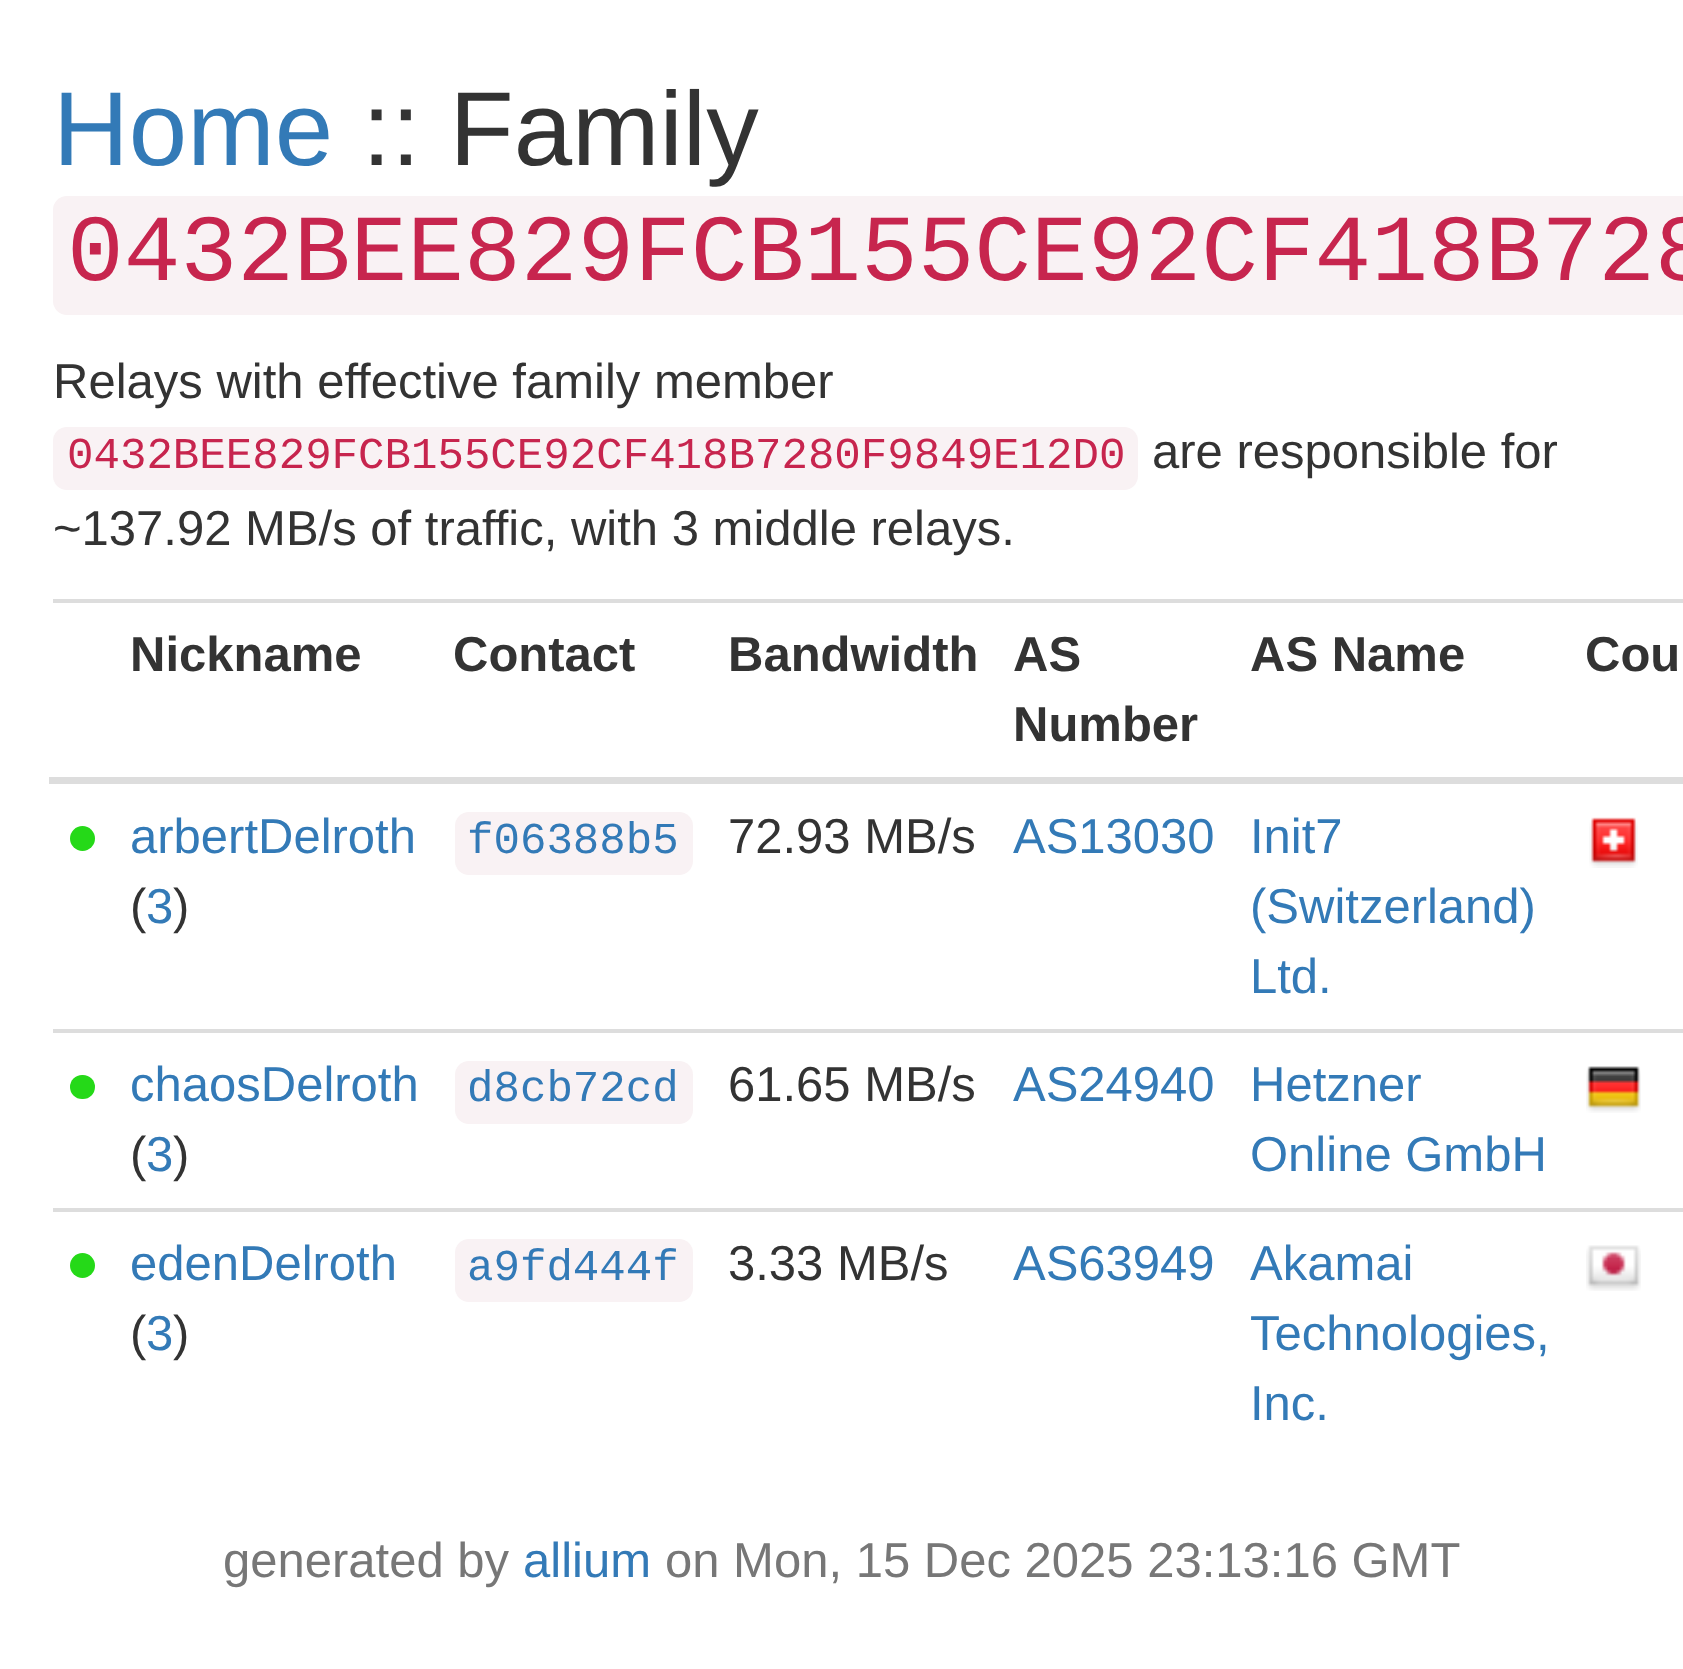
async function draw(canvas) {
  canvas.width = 1683;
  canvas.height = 1669;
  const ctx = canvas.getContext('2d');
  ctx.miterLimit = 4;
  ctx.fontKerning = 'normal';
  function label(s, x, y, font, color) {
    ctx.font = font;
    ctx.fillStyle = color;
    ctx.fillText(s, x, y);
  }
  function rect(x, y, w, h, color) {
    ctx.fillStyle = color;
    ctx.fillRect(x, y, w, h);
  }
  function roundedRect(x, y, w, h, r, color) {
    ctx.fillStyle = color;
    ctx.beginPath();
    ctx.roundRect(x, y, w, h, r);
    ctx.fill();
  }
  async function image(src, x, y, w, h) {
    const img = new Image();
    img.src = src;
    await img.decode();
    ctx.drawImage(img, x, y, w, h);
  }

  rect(0, 0, 1683, 1669, '#fff');
  label('Home', 53, 165, '105px Liberation Sans', '#337ab7');
  label(':: Family', 362, 165, '105px Liberation Sans', '#333');
  roundedRect(53, 196, 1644, 119, 14, '#f9f2f4');
  label('0432BEE829FCB155CE92CF418B728', 67, 280, '94.5px Liberation Mono', '#c7254e');
  label('Relays with effective family member', 53, 398, '49px Liberation Sans', '#333');
  roundedRect(53, 427, 1085, 63, 14, '#f9f2f4');
  label('0432BEE829FCB155CE92CF418B7280F9849E12D0', 67, 468, '44.1px Liberation Mono', '#c7254e');
  label('are responsible for', 1152, 468, '49px Liberation Sans', '#333');
  label('~137.92 MB/s of traffic, with 3 middle relays.', 53, 545, '49px Liberation Sans', '#333');
  label('Nickname', 130, 671, 'bold 49px Liberation Sans', '#333');
  label('Contact', 453, 671, 'bold 49px Liberation Sans', '#333');
  label('Bandwidth', 728, 671, 'bold 49px Liberation Sans', '#333');
  label('AS', 1013, 671, 'bold 49px Liberation Sans', '#333');
  label('Number', 1013, 741, 'bold 49px Liberation Sans', '#333');
  label('AS Name', 1250, 671, 'bold 49px Liberation Sans', '#333');
  rect(53, 599, 1630, 4, '#ddd');
  label('Cou', 1585, 671, 'bold 49px Liberation Sans', '#333');
  rect(49, 777, 1634, 7, '#ddd');
  ctx.fillStyle = '#25d918';
  ctx.beginPath();
  ctx.arc(82.5, 838.5, 12.5, 0, 2 * Math.PI);
  ctx.fill();
  label('arbertDelroth', 130, 853, '49px Liberation Sans', '#337ab7');
  label('(', 130, 923, '49px Liberation Sans', '#333');
  label('3', 146, 923, '49px Liberation Sans', '#337ab7');
  label(')', 173, 923, '49px Liberation Sans', '#333');
  roundedRect(455, 812, 238, 63, 14, '#f9f2f4');
  label('f06388b5', 467, 853, '44.1px Liberation Mono', '#337ab7');
  label('72.93 MB/s', 728, 853, '49px Liberation Sans', '#333');
  label('AS13030', 1013, 853, '49px Liberation Sans', '#337ab7');
  label('Init7', 1250, 853, '49px Liberation Sans', '#337ab7');
  label('(Switzerland)', 1250, 923, '49px Liberation Sans', '#337ab7');
  label('Ltd.', 1250, 993, '49px Liberation Sans', '#337ab7');
  await image('assets/img1.png', 1589, 817, 49, 51);
  rect(53, 1029, 1630, 4, '#ddd');
  await image('assets/img2.png', 1586, 1066, 55, 47);
  roundedRect(70, 1075, 25, 24, 12, '#25d918');
  label('chaosDelroth', 130, 1101, '49px Liberation Sans', '#337ab7');
  label('(', 130, 1171, '49px Liberation Sans', '#333');
  label('3', 146, 1171, '49px Liberation Sans', '#337ab7');
  label(')', 173, 1171, '49px Liberation Sans', '#333');
  roundedRect(455, 1061, 238, 63, 14, '#f9f2f4');
  label('d8cb72cd', 467, 1101, '44.1px Liberation Mono', '#337ab7');
  label('61.65 MB/s', 728, 1101, '49px Liberation Sans', '#333');
  label('AS24940', 1013, 1101, '49px Liberation Sans', '#337ab7');
  label('Hetzner', 1250, 1101, '49px Liberation Sans', '#337ab7');
  label('Online GmbH', 1250, 1171, '49px Liberation Sans', '#337ab7');
  rect(53, 1208, 1630, 4, '#ddd');
  await image('assets/img3.png', 1586, 1245, 55, 46);
  ctx.fillStyle = '#25d918';
  ctx.beginPath();
  ctx.arc(82.5, 1265.5, 12.5, 0, 2 * Math.PI);
  ctx.fill();
  label('edenDelroth', 130, 1280, '49px Liberation Sans', '#337ab7');
  label('(', 130, 1350, '49px Liberation Sans', '#333');
  label('3', 146, 1350, '49px Liberation Sans', '#337ab7');
  label(')', 173, 1350, '49px Liberation Sans', '#333');
  roundedRect(455, 1239, 238, 63, 14, '#f9f2f4');
  label('a9fd444f', 467, 1280, '44.1px Liberation Mono', '#337ab7');
  label('3.33 MB/s', 728, 1280, '49px Liberation Sans', '#333');
  label('AS63949', 1013, 1280, '49px Liberation Sans', '#337ab7');
  label('Akamai', 1250, 1280, '49px Liberation Sans', '#337ab7');
  label('Technologies,', 1250, 1350, '49px Liberation Sans', '#337ab7');
  label('Inc.', 1250, 1420, '49px Liberation Sans', '#337ab7');
  label('generated by', 223, 1577, '49px Liberation Sans', '#777');
  label('allium', 523, 1577, '49px Liberation Sans', '#337ab7');
  label('on Mon, 15 Dec 2025 23:13:16 GMT', 665, 1577, '49px Liberation Sans', '#777');
}

draw(document.querySelector('canvas'));
